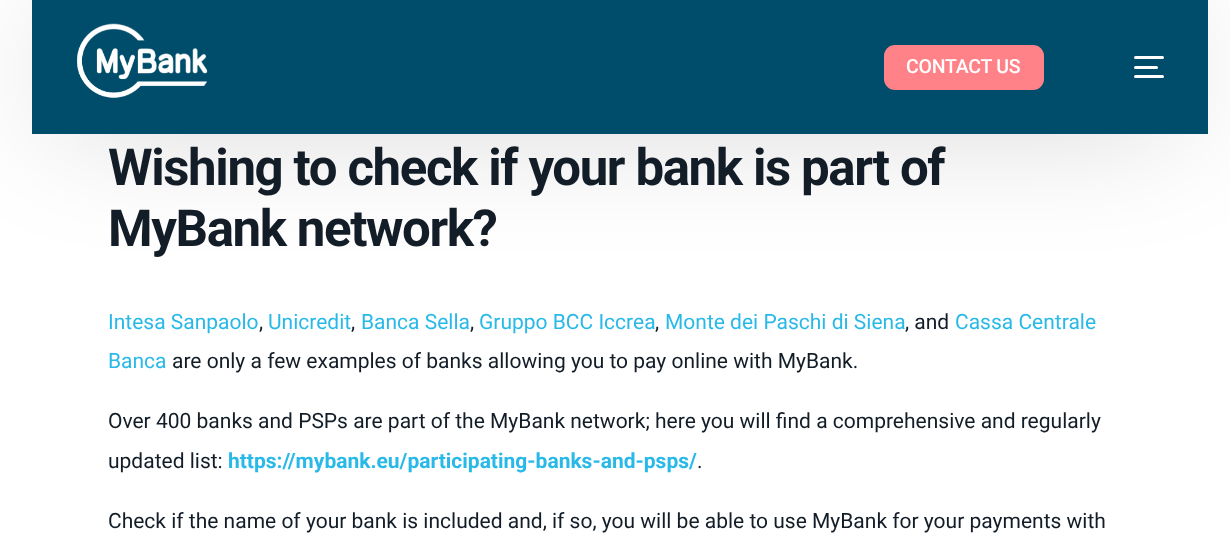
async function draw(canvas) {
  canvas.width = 1230;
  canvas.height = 560;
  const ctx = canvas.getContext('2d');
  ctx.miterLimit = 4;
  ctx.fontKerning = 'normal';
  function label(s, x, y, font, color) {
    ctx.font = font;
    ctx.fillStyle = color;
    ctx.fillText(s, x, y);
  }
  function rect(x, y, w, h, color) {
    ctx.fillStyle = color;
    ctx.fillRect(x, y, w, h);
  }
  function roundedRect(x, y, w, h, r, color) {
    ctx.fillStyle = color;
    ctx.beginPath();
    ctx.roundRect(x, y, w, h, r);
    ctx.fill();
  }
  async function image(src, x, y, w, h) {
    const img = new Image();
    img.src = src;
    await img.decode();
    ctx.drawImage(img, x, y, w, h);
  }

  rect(0, 0, 1230, 560, '#fff');
  ctx.fillStyle = '#00000040';
  ctx.filter = 'blur(67.5px)';
  ctx.beginPath();
  ctx.rect(59, 35, 1116, 73);
  ctx.fill();
  ctx.filter = 'none';
  rect(32, 0, 1176, 134, '#004c6b');
  await image('assets/img1.png', 77, 23, 131, 75);
  roundedRect(884, 45, 160, 45, 11, '#ff8288');
  ctx.letterSpacing = '-0.25px';
  label('CONTACT US', 906, 73, '500 19.5px Roboto', '#fff');
  roundedRect(1134, 56, 30, 3, 1.5, '#fff');
  roundedRect(1134, 66, 24, 3, 1.5, '#fff');
  roundedRect(1134, 75, 30, 3, 1.5, '#fff');
  ctx.letterSpacing = '-1.4px';
  label('Wishing to check if your bank is part of', 108, 185, 'bold 51px Roboto', '#131d28');
  label('MyBank network?', 108, 246, 'bold 51px Roboto', '#131d28');
  ctx.letterSpacing = '0px';
  label('Intesa Sanpaolo', 108, 329, '21px Roboto', '#29b9e9');
  label(',', 259, 329, '21px Roboto', '#131d28');
  label('Unicredit', 268, 329, '21px Roboto', '#29b9e9');
  label(',', 351, 329, '21px Roboto', '#131d28');
  label('Banca Sella', 361, 329, '21px Roboto', '#29b9e9');
  label(',', 470, 329, '21px Roboto', '#131d28');
  label('Gruppo BCC Iccrea', 479, 329, '21px Roboto', '#29b9e9');
  label(',', 655, 329, '21px Roboto', '#131d28');
  label('Monte dei Paschi di Siena', 665, 329, '21px Roboto', '#29b9e9');
  label(', and', 905, 329, '21px Roboto', '#131d28');
  label('Cassa Centrale', 955, 329, '21px Roboto', '#29b9e9');
  label('Banca', 108, 368, '21px Roboto', '#29b9e9');
  label('are only a few examples of banks allowing you to pay online with MyBank.', 172, 368, '21px Roboto', '#131d28');
  label('Over 400 banks and PSPs are part of the MyBank network; here you will find a comprehensive and regularly', 108, 428, '21px Roboto', '#131d28');
  label('updated list:', 108, 468, '21px Roboto', '#131d28');
  label('https://mybank.eu/participating-banks-and-psps/', 228, 468, 'bold 21px Roboto', '#29b9e9');
  label('.', 697, 468, '21px Roboto', '#131d28');
  label('Check if the name of your bank is included and, if so, you will be able to use MyBank for your payments with', 108, 528, '21px Roboto', '#131d28');
}

draw(document.querySelector('canvas'));
